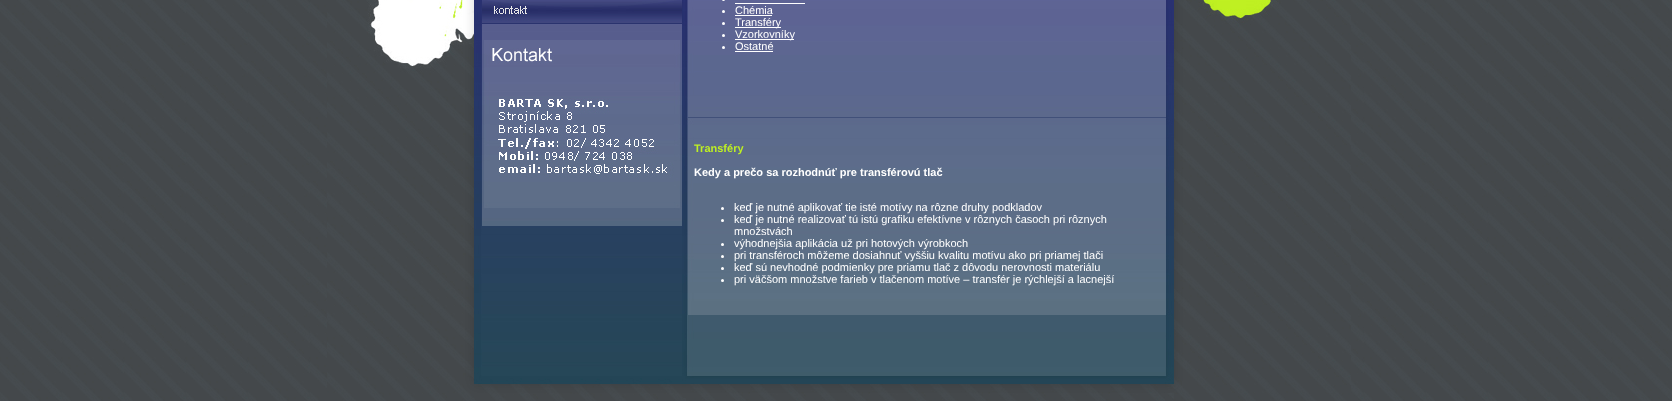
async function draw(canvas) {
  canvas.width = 1672;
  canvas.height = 401;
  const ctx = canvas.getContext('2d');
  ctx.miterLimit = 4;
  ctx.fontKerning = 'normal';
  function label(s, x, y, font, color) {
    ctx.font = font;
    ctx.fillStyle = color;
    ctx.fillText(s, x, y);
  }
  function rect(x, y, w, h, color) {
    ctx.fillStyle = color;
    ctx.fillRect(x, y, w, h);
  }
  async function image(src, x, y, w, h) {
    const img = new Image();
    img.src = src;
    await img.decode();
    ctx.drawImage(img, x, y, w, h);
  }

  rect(0, 0, 1672, 401, '#fff');
  await image('assets/img1.png', 0, 0, 1672, 401);
  await image('assets/img2.png', 327, 0, 147, 401);
  await image('assets/img3.png', 474, 0, 8, 401);
  await image('assets/img4.png', 482, 0, 200, 24);
  await image('assets/img5.png', 682, 0, 5, 117);
  await image('assets/img6.png', 687, 0, 478, 117);
  ctx.beginPath();
  ctx.arc(723.5, -0.5, 1.5, 0, 2 * Math.PI);
  ctx.fill();
  rect(735, 3, 70, 1, '#fff');
  ctx.beginPath();
  ctx.arc(723.5, 11.5, 1.5, 0, 2 * Math.PI);
  ctx.fill();
  label('Chémia', 735, 14, '11px Liberation Sans', '#fff');
  rect(735, 15, 37, 1, '#fff');
  ctx.beginPath();
  ctx.arc(723.5, 23.5, 1.5, 0, 2 * Math.PI);
  ctx.fill();
  rect(735, 27, 46, 1, '#fff');
  label('Transféry', 735, 26, '11px Liberation Sans', '#fff');
  ctx.beginPath();
  ctx.arc(723.5, 35.5, 1.5, 0, 2 * Math.PI);
  ctx.fill();
  rect(735, 39, 59, 1, '#fff');
  label('Vzorkovníky', 735, 38, '11px Liberation Sans', '#fff');
  ctx.beginPath();
  ctx.arc(723.5, 47.5, 1.5, 0, 2 * Math.PI);
  ctx.fill();
  label('Ostatné', 735, 50, '11px Liberation Sans', '#fff');
  rect(735, 51, 38, 1, '#fff');
  await image('assets/img7.png', 1165, 0, 9, 393);
  await image('assets/img8.png', 1174, 0, 177, 401);
  await image('assets/img9.png', 482, 24, 200, 50);
  await image('assets/img10.png', 482, 74, 200, 152);
  await image('assets/img11.png', 682, 117, 4, 281);
  await image('assets/img12.png', 686, 117, 479, 198);
  label('Transféry', 694, 152, 'bold 11px Liberation Sans', '#bff022');
  label('Kedy a prečo sa rozhodnúť pre transférovú tlač', 694, 176, 'bold 11px Liberation Sans', '#fff');
  ctx.beginPath();
  ctx.arc(722.5, 208.5, 1.5, 0, 2 * Math.PI);
  ctx.fill();
  label('keď je nutné aplikovať tie isté motívy na rôzne druhy podkladov', 734, 211, '11px Liberation Sans', '#fff');
  ctx.beginPath();
  ctx.arc(722.5, 220.5, 1.5, 0, 2 * Math.PI);
  ctx.fill();
  label('keď je nutné realizovať tú istú grafiku efektívne v rôznych časoch pri rôznych', 734, 223, '11px Liberation Sans', '#fff');
  label('množstvách', 734, 235, '11px Liberation Sans', '#fff');
  ctx.beginPath();
  ctx.arc(722.5, 244.5, 1.5, 0, 2 * Math.PI);
  ctx.fill();
  label('výhodnejšia aplikácia už pri hotových výrobkoch', 734, 247, '11px Liberation Sans', '#fff');
  ctx.beginPath();
  ctx.arc(722.5, 256.5, 1.5, 0, 2 * Math.PI);
  ctx.fill();
  label('pri transféroch môžeme dosiahnuť vyššiu kvalitu motívu ako pri priamej tlači', 734, 259, '11px Liberation Sans', '#fff');
  ctx.beginPath();
  ctx.arc(722.5, 268.5, 1.5, 0, 2 * Math.PI);
  ctx.fill();
  label('keď sú nevhodné podmienky pre priamu tlač z dôvodu nerovnosti materiálu', 734, 271, '11px Liberation Sans', '#fff');
  ctx.beginPath();
  ctx.arc(722.5, 280.5, 1.5, 0, 2 * Math.PI);
  ctx.fill();
  label('pri väčšom množstve farieb v tlačenom motíve – transfér je rýchlejší a lacnejší', 734, 283, '11px Liberation Sans', '#fff');
  await image('assets/img13.png', 482, 226, 200, 175);
  await image('assets/img14.png', 686, 315, 479, 61);
  await image('assets/img15.png', 686, 376, 479, 25);
}

draw(document.querySelector('canvas'));
